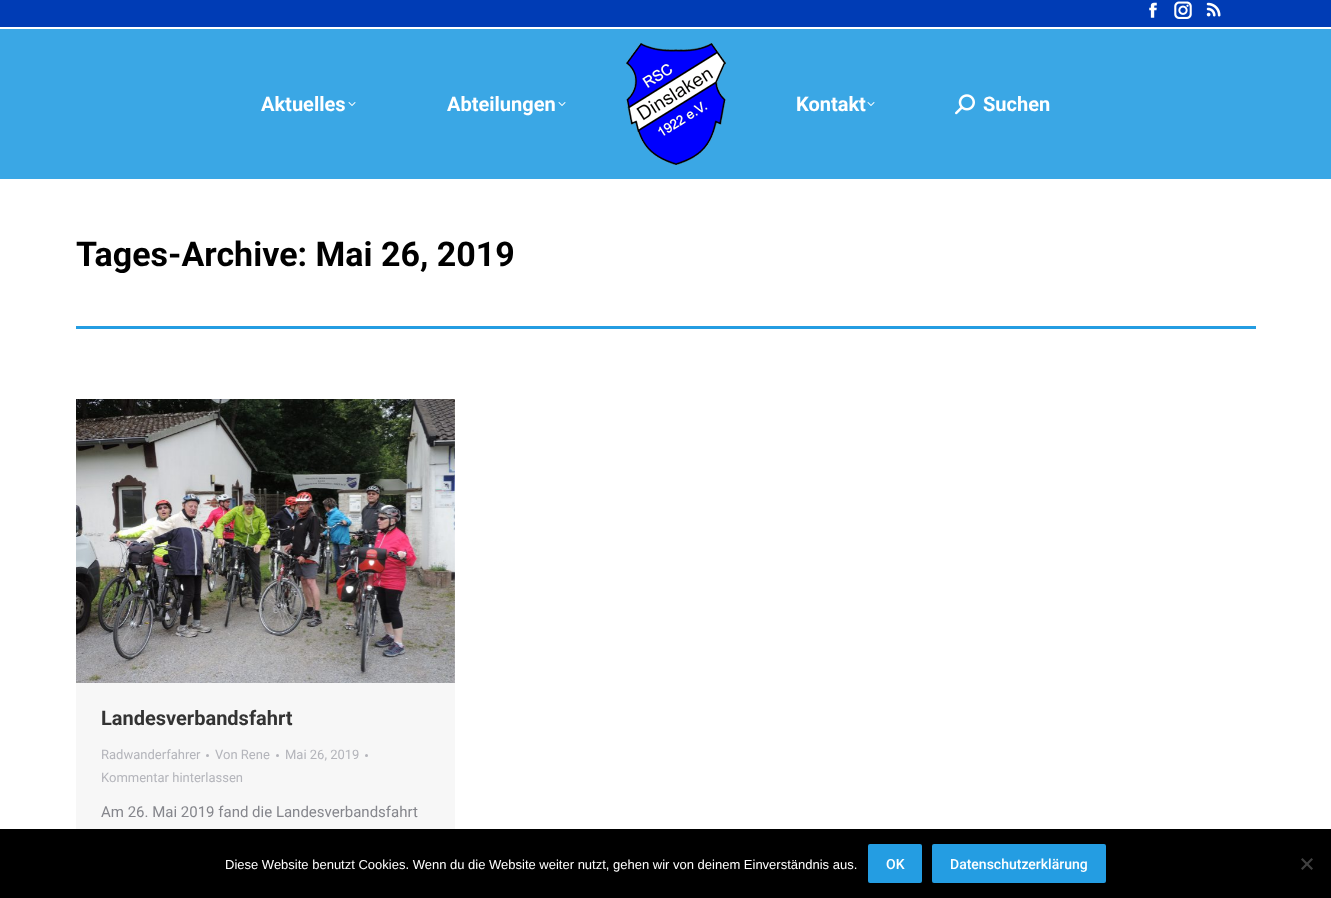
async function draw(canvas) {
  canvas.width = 1331;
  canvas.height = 898;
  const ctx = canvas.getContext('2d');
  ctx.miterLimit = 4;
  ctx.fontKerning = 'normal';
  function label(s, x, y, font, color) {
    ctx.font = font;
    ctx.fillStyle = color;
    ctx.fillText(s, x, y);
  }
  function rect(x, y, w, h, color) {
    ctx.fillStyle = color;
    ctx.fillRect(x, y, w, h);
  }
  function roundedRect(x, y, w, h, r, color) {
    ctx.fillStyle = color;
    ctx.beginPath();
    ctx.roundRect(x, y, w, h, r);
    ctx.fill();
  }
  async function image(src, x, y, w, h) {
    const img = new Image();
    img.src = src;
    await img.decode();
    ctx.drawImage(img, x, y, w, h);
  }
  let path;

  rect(0, 0, 1331, 898, '#fff');
  rect(0, 29, 1331, 150, '#3aa7e5');
  rect(0, 0, 1331, 27, '#003cb5');
  await image('assets/img1.png', 1149, 2, 8, 16);
  await image('assets/img2.png', 1174, 1, 18, 18);
  await image('assets/img3.png', 1206, 2, 15, 15);
  label('Aktuelles', 261, 111, 'bold 20px Roboto', '#fff');
  await image('assets/img4.png', 348, 102, 8, 4);
  label('Abteilungen', 447, 111, 'bold 20px Roboto', '#fff');
  await image('assets/img4.png', 558, 102, 8, 4);
  await image('assets/img5.png', 626, 43, 100, 122);
  label('Kontakt', 796, 111, 'bold 20px Roboto', '#fff');
  await image('assets/img4.png', 867, 102, 8, 4);
  await image('assets/img6.png', 955, 94, 20, 21);
  label('Suchen', 983, 111, 'bold 20px Roboto', '#fff');
  label('Tages-Archive: Mai 26, 2019', 76, 266, 'bold 34px Roboto', '#000');
  rect(76, 326, 1180, 3, '#249de2');
  rect(76, 399, 379, 430, '#f7f7f7');
  await image('assets/img7.png', 76, 399, 379, 284);
  label('Landesverbandsfahrt', 101, 725, 'bold 20px Roboto', '#333');
  label('Radwanderfahrer', 101, 759, '13px Roboto', '#b4b5bb');
  ctx.beginPath();
  ctx.arc(207.5, 755.5, 1.5, 0, 2 * Math.PI);
  ctx.fill();
  label('Von Rene', 215, 759, '13px Roboto', '#b4b5bb');
  ctx.beginPath();
  ctx.arc(277.5, 755.5, 1.5, 0, 2 * Math.PI);
  ctx.fill();
  label('Mai 26, 2019', 285, 759, '13px Roboto', '#b4b5bb');
  ctx.beginPath();
  ctx.arc(366.5, 755.5, 1.5, 0, 2 * Math.PI);
  ctx.fill();
  label('Kommentar hinterlassen', 101, 782, '13px Roboto', '#b4b5bb');
  label('Am 26. Mai 2019 fand die Landesverbandsfahrt', 101, 817, '15px Roboto', '#85868c');
  rect(0, 829, 1331, 69, '#000');
  label('Diese Website benutzt Cookies. Wenn du die Website weiter nutzt, gehen wir von deinem Einverständnis aus.', 225, 869, '13px Liberation Sans', '#fff');
  roundedRect(868, 844, 54, 39, 2, '#249de2');
  label('OK', 886, 869, '500 14px Roboto', '#fff');
  roundedRect(932, 844, 174, 39, 2, '#249de2');
  label('Datenschutzerklärung', 950, 869, '500 14px Roboto', '#fff');
  ctx.fillStyle = '#404040';
  path = new Path2D('M1311.5 858L1313 859.5L1302.5 870L1301 868.5Z');
  ctx.fill(path);
  path = new Path2D('M1301 859.5L1302.5 858L1313 868.5L1311.5 870Z');
  ctx.fill(path);
}

draw(document.querySelector('canvas'));
